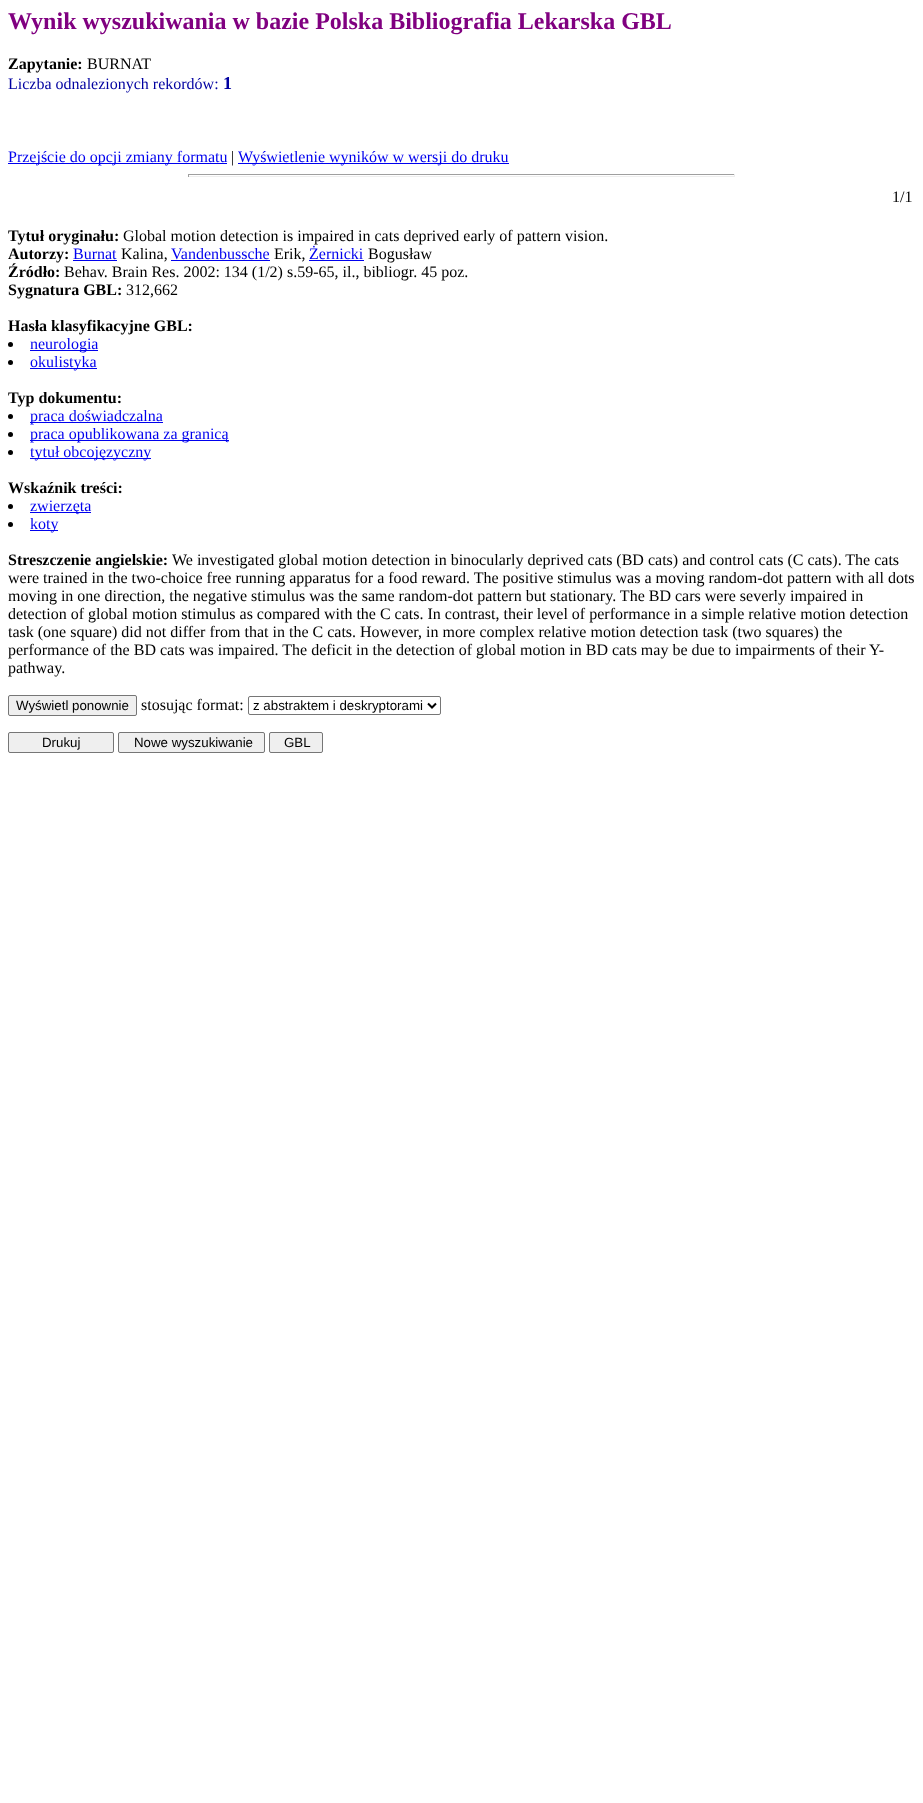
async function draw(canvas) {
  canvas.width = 923;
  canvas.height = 1803;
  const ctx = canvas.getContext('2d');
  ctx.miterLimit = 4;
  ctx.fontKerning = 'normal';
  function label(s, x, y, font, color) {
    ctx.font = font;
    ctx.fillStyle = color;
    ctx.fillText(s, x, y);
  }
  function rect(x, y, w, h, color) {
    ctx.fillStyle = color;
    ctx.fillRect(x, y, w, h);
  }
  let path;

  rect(0, 0, 923, 1803, '#fff');
  label('Wynik wyszukiwania w bazie Polska Bibliografia Lekarska GBL', 8, 29, 'bold 24px Liberation Serif', '#800080');
  label('Zapytanie:', 8, 69, 'bold 16px Liberation Serif', '#000');
  label('BURNAT', 87, 69, '16px Liberation Serif', '#000');
  label('Liczba odnalezionych rekordów:', 8, 89, '16px Liberation Serif', '#0000a0');
  label('1', 223, 89, 'bold 18px Liberation Serif', '#0000a0');
  rect(8, 163, 219, 1, '#00e');
  label('Przejście do opcji zmiany formatu', 8, 162, '16px Liberation Serif', '#00e');
  label('|', 231, 162, '16px Liberation Serif', '#000');
  rect(238, 163, 271, 1, '#00e');
  label('Wyświetlenie wyników w wersji do druku', 238, 162, '16px Liberation Serif', '#00e');
  rect(188, 174, 547, 1, '#9f9f9f');
  rect(734, 174, 1, 3, '#eee');
  rect(188, 176, 547, 1, '#eee');
  rect(188, 174, 1, 3, '#9f9f9f');
  label('1/1', 892, 202, '16px Liberation Serif', '#000');
  label('Tytuł oryginału:', 8, 241, 'bold 16px Liberation Serif', '#000');
  label('Global motion detection is impaired in cats deprived early of pattern vision.', 123, 241, '16px Liberation Serif', '#000');
  label('Autorzy:', 8, 259, 'bold 16px Liberation Serif', '#000');
  label('Burnat', 73, 259, '16px Liberation Serif', '#00e');
  rect(73, 260, 44, 1, '#00e');
  label('Kalina,', 121, 259, '16px Liberation Serif', '#000');
  label('Vandenbussche', 171, 259, '16px Liberation Serif', '#00e');
  rect(171, 260, 99, 1, '#00e');
  label('Erik,', 274, 259, '16px Liberation Serif', '#000');
  label('Żernicki', 309, 259, '16px Liberation Serif', '#00e');
  rect(309, 260, 55, 1, '#00e');
  label('Bogusław', 368, 259, '16px Liberation Serif', '#000');
  label('Źródło:', 8, 277, 'bold 16px Liberation Serif', '#000');
  label('Behav. Brain Res. 2002: 134 (1/2) s.59-65, il., bibliogr. 45 poz.', 64, 277, '16px Liberation Serif', '#000');
  label('Sygnatura GBL:', 8, 295, 'bold 16px Liberation Serif', '#000');
  label('312,662', 126, 295, '16px Liberation Serif', '#000');
  label('Hasła klasyfikacyjne GBL:', 8, 331, 'bold 16px Liberation Serif', '#000');
  ctx.beginPath();
  ctx.arc(10.5, 344.5, 2.5, 0, 2 * Math.PI);
  ctx.fill();
  rect(30, 350, 68, 1, '#00e');
  label('neurologia', 30, 349, '16px Liberation Serif', '#00e');
  ctx.fillStyle = '#000';
  ctx.beginPath();
  ctx.arc(10.5, 362.5, 2.5, 0, 2 * Math.PI);
  ctx.fill();
  rect(30, 368, 67, 1, '#00e');
  label('okulistyka', 30, 367, '16px Liberation Serif', '#00e');
  label('Typ dokumentu:', 8, 403, 'bold 16px Liberation Serif', '#000');
  ctx.beginPath();
  ctx.arc(10.5, 416.5, 2.5, 0, 2 * Math.PI);
  ctx.fill();
  rect(30, 422, 133, 1, '#00e');
  label('praca doświadczalna', 30, 421, '16px Liberation Serif', '#00e');
  ctx.fillStyle = '#000';
  ctx.beginPath();
  ctx.arc(10.5, 434.5, 2.5, 0, 2 * Math.PI);
  ctx.fill();
  rect(30, 440, 199, 1, '#00e');
  label('praca opublikowana za granicą', 30, 439, '16px Liberation Serif', '#00e');
  ctx.fillStyle = '#000';
  ctx.beginPath();
  ctx.arc(10.5, 452.5, 2.5, 0, 2 * Math.PI);
  ctx.fill();
  rect(30, 458, 121, 1, '#00e');
  label('tytuł obcojęzyczny', 30, 457, '16px Liberation Serif', '#00e');
  label('Wskaźnik treści:', 8, 493, 'bold 16px Liberation Serif', '#000');
  ctx.beginPath();
  ctx.arc(10.5, 506.5, 2.5, 0, 2 * Math.PI);
  ctx.fill();
  rect(30, 512, 61, 1, '#00e');
  label('zwierzęta', 30, 511, '16px Liberation Serif', '#00e');
  ctx.fillStyle = '#000';
  ctx.beginPath();
  ctx.arc(10.5, 524.5, 2.5, 0, 2 * Math.PI);
  ctx.fill();
  rect(30, 530, 28, 1, '#00e');
  label('koty', 30, 529, '16px Liberation Serif', '#00e');
  label('Streszczenie angielskie:', 8, 565, 'bold 16px Liberation Serif', '#000');
  label('We investigated global motion detection in binocularly deprived cats (BD cats) and control cats (C cats). The cats', 172, 565, '16px Liberation Serif', '#000');
  label('were trained in the two-choice free running apparatus for a food reward. The positive stimulus was a moving random-dot pattern with all dots', 8, 583, '16px Liberation Serif', '#000');
  label('moving in one direction, the negative stimulus was the same random-dot pattern but stationary. The BD cars were severly impaired in', 8, 601, '16px Liberation Serif', '#000');
  label('detection of global motion stimulus as compared with the C cats. In contrast, their level of performance in a simple relative motion detection', 8, 619, '16px Liberation Serif', '#000');
  label('task (one square) did not differ from that in the C cats. However, in more complex relative motion detection task (two squares) the', 8, 637, '16px Liberation Serif', '#000');
  label('performance of the BD cats was impaired. The deficit in the detection of global motion in BD cats may be due to impairments of their Y-', 8, 655, '16px Liberation Serif', '#000');
  label('pathway.', 8, 673, '16px Liberation Serif', '#000');
  ctx.fillStyle = '#efefef';
  ctx.beginPath();
  ctx.roundRect(8.5, 695.5, 128, 20, 1.5);
  ctx.fill();
  ctx.strokeStyle = '#767676';
  ctx.stroke();
  label('Wyświetl ponownie', 16, 710, '13.3px Liberation Sans', '#000');
  label('stosując format:', 141, 710, '16px Liberation Serif', '#000');
  ctx.beginPath();
  ctx.roundRect(248.5, 696.5, 192, 18, 1.5);
  ctx.stroke();
  path = new Path2D('M428 703.5L432 707.5L436 703.5');
  ctx.strokeStyle = '#000';
  ctx.lineWidth = 2;
  ctx.stroke(path);
  label('z abstraktem i deskryptorami', 253, 710, '13.3px Liberation Sans', '#000');
  ctx.fillStyle = '#efefef';
  ctx.beginPath();
  ctx.roundRect(8.5, 732.5, 105, 20, 1.5);
  ctx.fill();
  ctx.strokeStyle = '#767676';
  ctx.lineWidth = 1;
  ctx.stroke();
  label('Drukuj', 42, 747, '13.3px Liberation Sans', '#000');
  ctx.fillStyle = '#efefef';
  ctx.beginPath();
  ctx.roundRect(118.5, 732.5, 146, 20, 1.5);
  ctx.fill();
  ctx.stroke();
  label('Nowe wyszukiwanie', 134, 747, '13.3px Liberation Sans', '#000');
  ctx.fillStyle = '#efefef';
  ctx.beginPath();
  ctx.roundRect(269.5, 732.5, 53, 20, 1.5);
  ctx.fill();
  ctx.stroke();
  label('GBL', 284, 747, '13.3px Liberation Sans', '#000');
}

draw(document.querySelector('canvas'));
